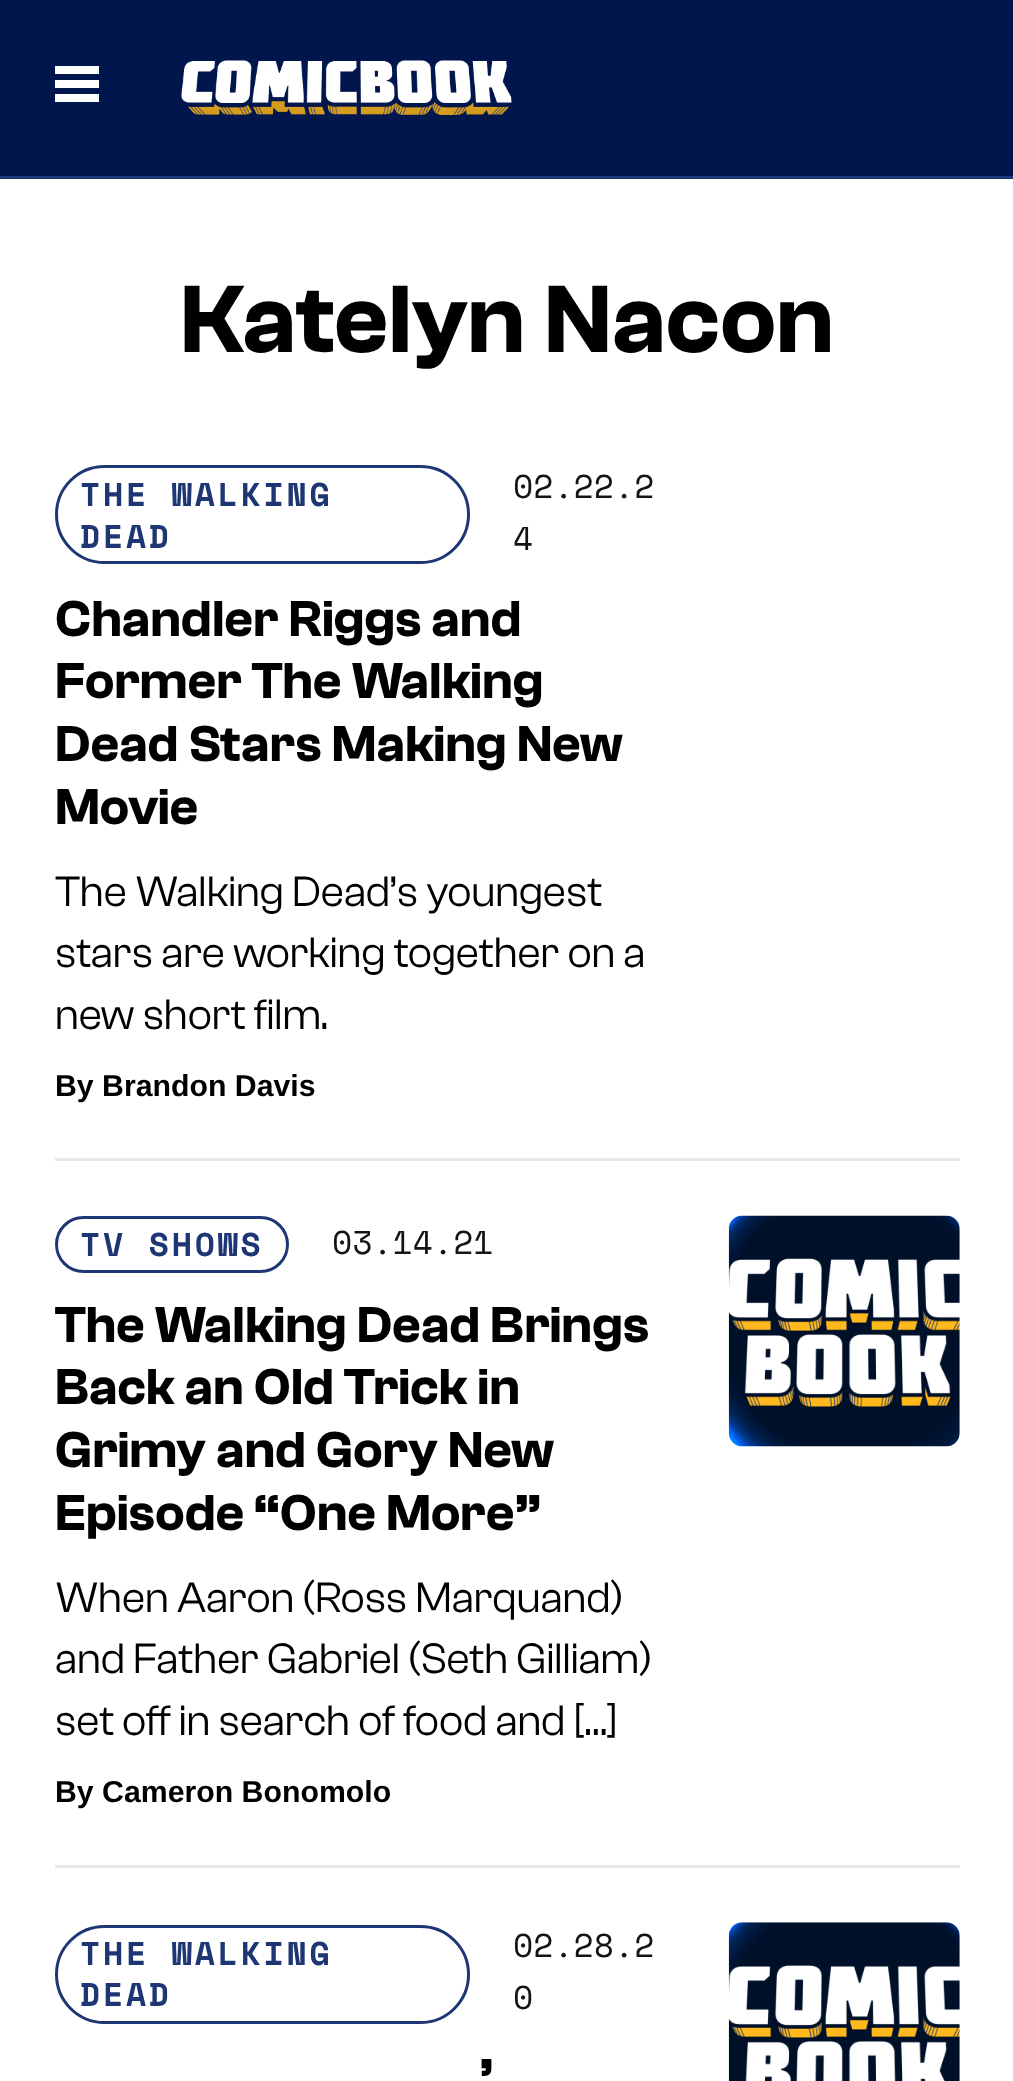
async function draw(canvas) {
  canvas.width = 1013;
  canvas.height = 2081;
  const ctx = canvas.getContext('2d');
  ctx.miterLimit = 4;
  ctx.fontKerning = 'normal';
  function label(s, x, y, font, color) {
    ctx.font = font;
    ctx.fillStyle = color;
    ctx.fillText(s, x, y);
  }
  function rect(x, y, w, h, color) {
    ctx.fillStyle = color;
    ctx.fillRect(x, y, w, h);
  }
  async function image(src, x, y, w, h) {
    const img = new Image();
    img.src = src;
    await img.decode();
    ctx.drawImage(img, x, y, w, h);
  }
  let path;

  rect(0, 0, 1013, 2081, '#fff');
  rect(0, 176, 1013, 3, '#1e3774');
  rect(0, 0, 1013, 176, '#00164d');
  ctx.fillStyle = '#fff';
  path = new Path2D('M55 66H99V74H55ZM55 80H99V88H55ZM55 94H99V102H55Z');
  ctx.fill(path);
  await image('assets/img1.png', 181, 60, 331, 55);
  label('Katelyn Nacon', 180, 352, 'italic 600 99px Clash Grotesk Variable', '#000');
  ctx.beginPath();
  ctx.roundRect(56.5, 466.5, 412, 96, 48);
  ctx.strokeStyle = '#1e3774';
  ctx.lineWidth = 3;
  ctx.stroke();
  ctx.letterSpacing = '2.75px';
  label('THE WALKING', 80, 506, 'bold 33px Space Mono', '#1e3774');
  label('DEAD', 80, 548, 'bold 33px Space Mono', '#1e3774');
  ctx.letterSpacing = '0px';
  label('02.22.2', 513, 498, '33px Space Mono', '#141414');
  label('4', 513, 550, '33px Space Mono', '#141414');
  label('Chandler Riggs and', 55, 636, 'italic 600 52.25px Clash Grotesk Variable', '#000');
  label('Former The Walking', 55, 698, 'italic 600 52.25px Clash Grotesk Variable', '#000');
  label('Dead Stars Making New', 55, 761, 'italic 600 52.25px Clash Grotesk Variable', '#000');
  label('Movie', 55, 824, 'italic 600 52.25px Clash Grotesk Variable', '#000');
  label('The Walking Dead’s youngest', 55, 906, 'italic 44px Clash Grotesk Variable', '#000');
  label('stars are working together on a', 55, 967, 'italic 44px Clash Grotesk Variable', '#000');
  label('new short film.', 55, 1029, 'italic 44px Clash Grotesk Variable', '#000');
  label('By Brandon Davis', 55, 1096, 'bold 30.25px Liberation Sans', '#000');
  rect(55, 1158, 905, 3, '#e8e8e8');
  ctx.beginPath();
  ctx.roundRect(56.5, 1217.5, 231, 54, 27);
  ctx.stroke();
  ctx.letterSpacing = '2.75px';
  label('TV SHOWS', 80, 1256, 'bold 33px Space Mono', '#1e3774');
  ctx.letterSpacing = '0px';
  label('03.14.21', 332, 1254, '33px Space Mono', '#141414');
  label('The Walking Dead Brings', 55, 1342, 'italic 600 52.25px Clash Grotesk Variable', '#000');
  label('Back an Old Trick in', 55, 1404, 'italic 600 52.25px Clash Grotesk Variable', '#000');
  label('Grimy and Gory New', 55, 1467, 'italic 600 52.25px Clash Grotesk Variable', '#000');
  label('Episode “One More”', 55, 1530, 'italic 600 52.25px Clash Grotesk Variable', '#000');
  label('When Aaron (Ross Marquand)', 55, 1612, 'italic 44px Clash Grotesk Variable', '#000');
  label('and Father Gabriel (Seth Gilliam)', 55, 1673, 'italic 44px Clash Grotesk Variable', '#000');
  label('set off in search of food and […]', 55, 1735, 'italic 44px Clash Grotesk Variable', '#000');
  label('By Cameron Bonomolo', 55, 1802, 'bold 30.25px Liberation Sans', '#000');
  await image('assets/img2.png', 728, 1215, 232, 232);
  rect(55, 1865, 905, 3, '#e8e8e8');
  ctx.beginPath();
  ctx.roundRect(56.5, 1926.5, 412, 96, 48);
  ctx.stroke();
  ctx.letterSpacing = '2.75px';
  label('THE WALKING', 80, 1965, 'bold 33px Space Mono', '#1e3774');
  label('DEAD', 80, 2006, 'bold 33px Space Mono', '#1e3774');
  ctx.letterSpacing = '0px';
  label('02.28.2', 513, 1957, '33px Space Mono', '#141414');
  label('0', 513, 2009, '33px Space Mono', '#141414');
  label('’', 480, 2094, 'italic 600 52.25px Clash Grotesk Variable', '#000');
  await image('assets/img3.png', 728, 1922, 232, 159);
}

draw(document.querySelector('canvas'));
